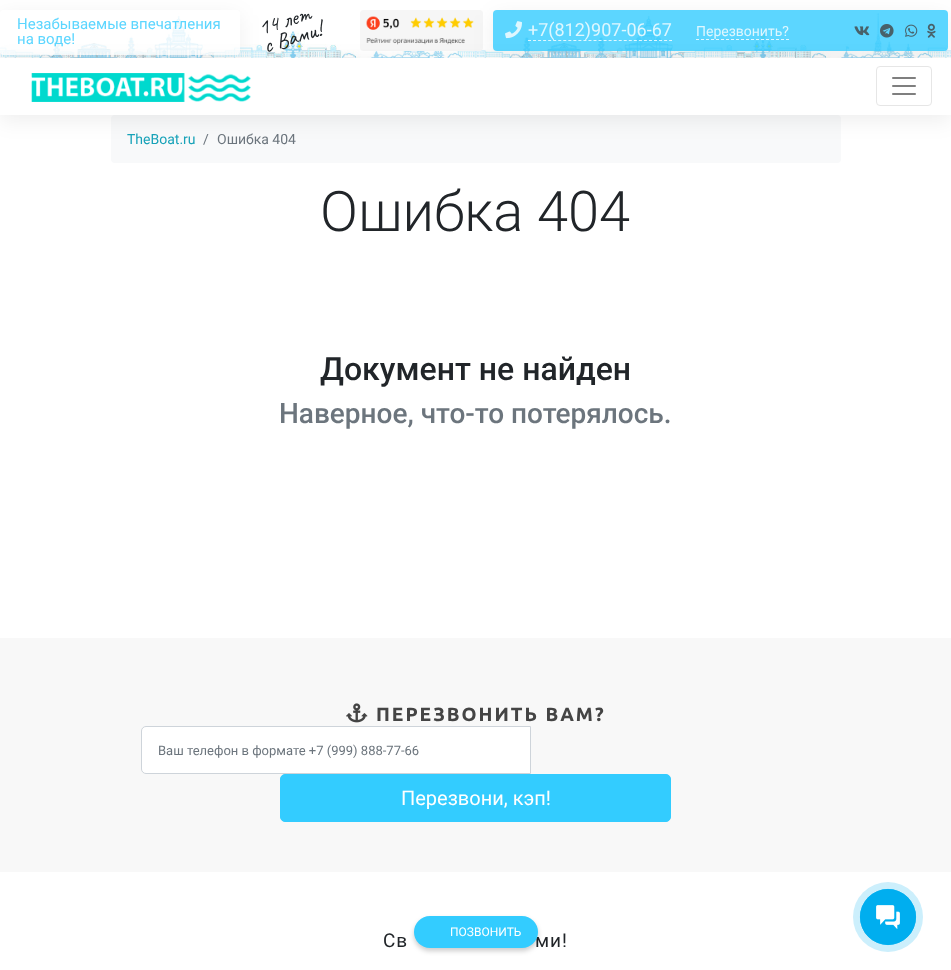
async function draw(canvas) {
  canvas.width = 951;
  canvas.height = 970;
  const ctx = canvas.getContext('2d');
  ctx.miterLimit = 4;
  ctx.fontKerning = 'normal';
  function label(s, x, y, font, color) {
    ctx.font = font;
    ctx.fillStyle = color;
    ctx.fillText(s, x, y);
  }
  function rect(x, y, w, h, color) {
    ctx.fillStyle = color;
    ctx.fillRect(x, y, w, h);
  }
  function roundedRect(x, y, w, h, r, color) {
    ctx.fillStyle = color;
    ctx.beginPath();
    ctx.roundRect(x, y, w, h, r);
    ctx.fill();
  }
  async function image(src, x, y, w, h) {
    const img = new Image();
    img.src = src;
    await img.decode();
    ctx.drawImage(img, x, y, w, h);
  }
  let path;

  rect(0, 0, 951, 970, '#fff');
  await image('assets/img1.png', 0, 13, 951, 45);
  ctx.save();
  ctx.beginPath();
  ctx.rect(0, 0, 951, 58);
  ctx.clip();
  path = new Path2D('M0 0H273V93H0ZM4 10H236C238 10 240 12 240 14V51C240 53 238 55 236 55H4C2 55 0 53 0 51V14C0 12 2 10 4 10Z');
  ctx.clip(path, 'evenodd');
  ctx.fillStyle = '#0000000f';
  ctx.filter = 'blur(10.5px)';
  ctx.beginPath();
  ctx.roundRect(0, 15, 240, 45, 4);
  ctx.fill();
  ctx.filter = 'none';
  ctx.restore();
  roundedRect(0, 10, 240, 45, 4, '#ffffffcc');
  label('Незабываемые впечатления', 17, 29, '15px Roboto', '#5cd6ff');
  label('на воде!', 17, 44, '15px Roboto', '#5cd6ff');
  ctx.font = '22px Caveat';
  ctx.fillStyle = '#212529';
  ctx.save();
  ctx.translate(261, 35);
  ctx.rotate(-17 * Math.PI / 180);
  ctx.fillText('14 лет', 0, 0);
  ctx.restore();
  ctx.save();
  ctx.translate(266, 53);
  ctx.rotate(-17 * Math.PI / 180);
  ctx.fillText('с Вами!', 0, 0);
  ctx.restore();
  await image('assets/img2.png', 360, 10, 123, 41);
  ctx.save();
  ctx.beginPath();
  ctx.rect(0, 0, 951, 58);
  ctx.clip();
  path = new Path2D('M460 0H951V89H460ZM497 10H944C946 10 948 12 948 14V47C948 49 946 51 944 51H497C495 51 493 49 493 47V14C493 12 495 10 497 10Z');
  ctx.clip(path, 'evenodd');
  ctx.fillStyle = '#0000000f';
  ctx.filter = 'blur(10.5px)';
  ctx.beginPath();
  ctx.roundRect(493, 15, 455, 41, 4);
  ctx.fill();
  ctx.filter = 'none';
  ctx.restore();
  roundedRect(493, 10, 455, 41, 4, '#33ccffcc');
  await image('assets/img3.png', 505, 21, 17, 18);
  path = new Path2D('M528 40.5H672');
  ctx.strokeStyle = '#ffffffcc';
  ctx.setLineDash([3, 2.04]);
  ctx.stroke(path);
  label('+7(812)907-06-67', 528, 36, '18px Roboto', '#def7ff');
  label('Перезвонить?', 696, 36, '14px Roboto', '#def7ff');
  path = new Path2D('M696 39.5H789');
  ctx.setLineDash([3, 2]);
  ctx.stroke(path);
  await image('assets/img4.png', 854, 26, 16, 10);
  await image('assets/img5.png', 880, 24, 14, 14);
  await image('assets/img6.png', 905, 24, 13, 13);
  await image('assets/img7.png', 927, 23, 9, 15);
  roundedRect(111, 115, 730, 48, 4, '#f8f9fa');
  ctx.save();
  path = new Path2D('M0 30H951V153H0ZM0 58H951V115H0Z');
  ctx.clip(path, 'evenodd');
  ctx.fillStyle = '#00000012';
  ctx.filter = 'blur(10.5px)';
  ctx.beginPath();
  ctx.rect(0, 63, 951, 57);
  ctx.fill();
  ctx.filter = 'none';
  ctx.restore();
  await image('assets/img8.png', 31, 73, 220, 29);
  ctx.beginPath();
  ctx.roundRect(876.5, 66.5, 55, 39, 3.5);
  ctx.strokeStyle = '#e6e6e6';
  ctx.setLineDash([]);
  ctx.stroke();
  await image('assets/img9.png', 892, 77, 24, 18);
  label('TheBoat.ru', 127, 144, '14px Roboto', '#17a2b8');
  label('/', 203, 144, '14px Roboto', '#6c757d');
  label('Ошибка 404', 217, 144, '14px Roboto', '#6c757d');
  label('Ошибка 404', 320, 231, '300 56px Roboto', '#212529');
  label('Документ не найден', 320, 380, '500 32px Roboto', '#212529');
  label('Наверное, что-то потерялось.', 279, 423, '500 28px Roboto', '#6c757d');
  rect(0, 638, 951, 234, '#f8f8f8');
  await image('assets/img10.png', 346, 703, 22, 20);
  ctx.letterSpacing = '2px';
  label('ПЕРЕЗВОНИТЬ ВАМ?', 376, 721, 'bold 19px Ubuntu', '#444');
  ctx.fillStyle = '#fff';
  ctx.beginPath();
  ctx.roundRect(141.5, 726.5, 389, 47, [4.5, 0, 0, 4.5]);
  ctx.fill();
  ctx.strokeStyle = '#ced4da';
  ctx.stroke();
  ctx.letterSpacing = '0px';
  label('Ваш телефон в формате +7 (999) 888-77-66', 158, 755, '13px Roboto', '#6c757d');
  ctx.fillStyle = '#3cf';
  ctx.beginPath();
  ctx.roundRect(280.5, 774.5, 390, 47, 4.5);
  ctx.fill();
  ctx.strokeStyle = '#3cf';
  ctx.stroke();
  label('Перезвони, кэп!', 401, 805, '20px Roboto', '#fff');
  ctx.letterSpacing = '1px';
  label('Св', 383, 947, '19px Roboto', '#212529');
  label('ми!', 535, 947, '19px Roboto', '#212529');
  ctx.fillStyle = '#cceffc';
  ctx.beginPath();
  ctx.arc(888, 917, 35, 0, 2 * Math.PI);
  ctx.fill();
  ctx.beginPath();
  ctx.arc(888, 917, 27.6, 0, 2 * Math.PI);
  ctx.strokeStyle = '#00aeef';
  ctx.lineWidth = 0.8;
  ctx.stroke();
  ctx.fillStyle = '#00aeef';
  ctx.beginPath();
  ctx.arc(888, 917, 28, 0, 2 * Math.PI);
  ctx.fill();
  await image('assets/img11.png', 876, 905, 24, 24);
  ctx.fillStyle = '#00000033';
  ctx.filter = 'blur(2.5px)';
  ctx.beginPath();
  ctx.roundRect(414, 919, 124, 32, 16);
  ctx.fill();
  ctx.filter = 'none';
  roundedRect(414, 916, 124, 32, 16, '#3cf');
  ctx.letterSpacing = '0px';
  label('ПОЗВОНИТЬ', 450, 936, '12px Roboto', '#fff');
}

draw(document.querySelector('canvas'));
